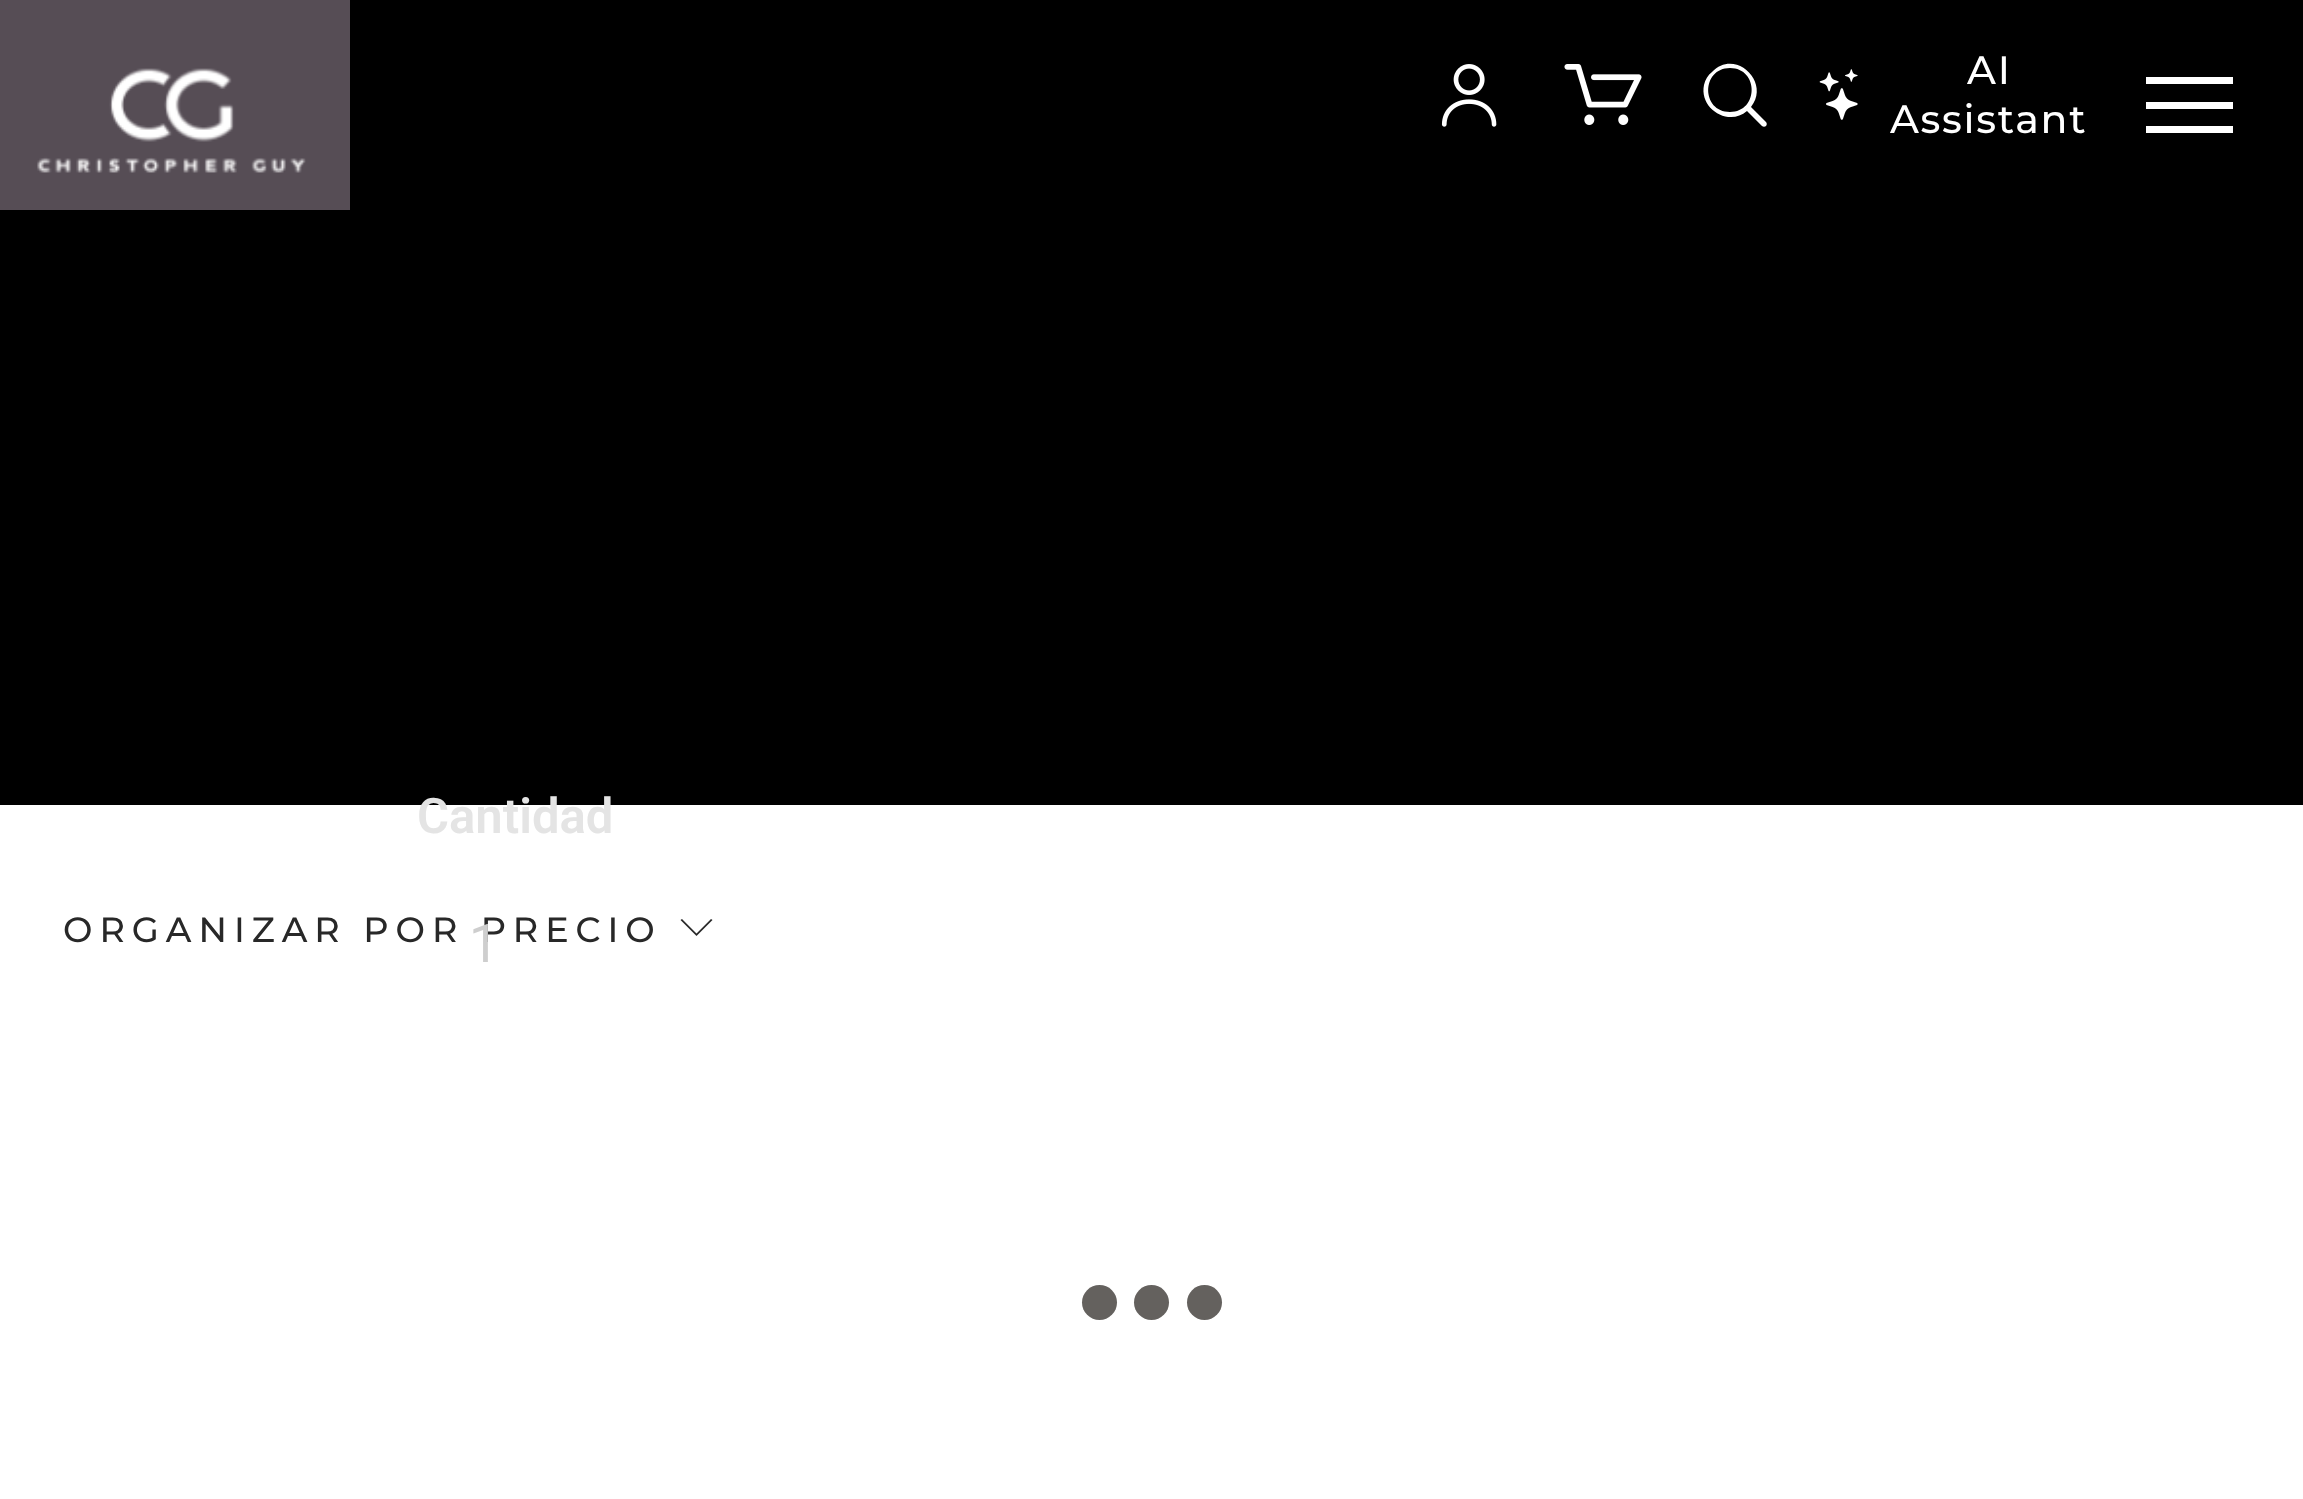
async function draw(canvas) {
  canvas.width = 2303;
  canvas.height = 1499;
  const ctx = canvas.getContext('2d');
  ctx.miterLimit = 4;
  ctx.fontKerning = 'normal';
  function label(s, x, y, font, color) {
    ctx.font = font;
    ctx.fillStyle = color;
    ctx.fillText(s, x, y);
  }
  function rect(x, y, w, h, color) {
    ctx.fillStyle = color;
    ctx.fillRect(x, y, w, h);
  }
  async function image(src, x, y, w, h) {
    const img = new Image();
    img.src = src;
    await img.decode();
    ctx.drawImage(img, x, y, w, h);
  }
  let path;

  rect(0, 0, 2303, 1499, '#fff');
  rect(0, 0, 2303, 805, '#000');
  rect(0, 0, 350, 210, '#564d55');
  await image('assets/img1.png', 37, 68, 269, 105);
  await image('assets/img2.png', 1441, 64, 56, 63);
  await image('assets/img3.png', 1564, 64, 78, 61);
  ctx.fillStyle = '#fff';
  path = new Path2D('M1766 122C1767 123 1767 125 1766 126C1765 127 1763 127 1762 126L1747 111C1729 127 1699 109 1704 85C1705 80 1708 75 1712 72C1735 48 1771 82 1751 107ZM1730 112C1759 112 1759 68 1730 68C1701 68 1701 112 1730 112Z');
  ctx.fill(path);
  await image('assets/img4.png', 1819, 69, 39, 51);
  ctx.letterSpacing = '1.75px';
  label('AI', 1967, 84, '500 39.5px Montserrat', '#fff');
  label('Assistant', 1890, 133, '500 39.5px Montserrat', '#fff');
  rect(2146, 77, 87, 7, '#fff');
  rect(2146, 102, 87, 7, '#fff');
  rect(2146, 126, 87, 7, '#fff');
  ctx.letterSpacing = '0px';
  label('Cantidad', 417, 833, '600 49px Roboto', '#e4e4e4');
  ctx.letterSpacing = '7px';
  label('ORGANIZAR POR PRECIO', 63, 942, '500 35px Montserrat', '#282828');
  ctx.letterSpacing = '4px';
  label('1', 469, 962, '53px Roboto', '#cecece');
  ctx.fillStyle = '#64615e';
  ctx.beginPath();
  ctx.arc(1099.5, 1302.5, 17.5, 0, 2 * Math.PI);
  ctx.fill();
  ctx.beginPath();
  ctx.arc(1151.5, 1302.5, 17.5, 0, 2 * Math.PI);
  ctx.fill();
  ctx.beginPath();
  ctx.arc(1204.5, 1302.5, 17.5, 0, 2 * Math.PI);
  ctx.fill();
  ctx.fillStyle = '#282828';
  path = new Path2D('M696.5 936L680.5 920L682 919L696.5 933.5L711 919L712.5 920Z');
  ctx.fill(path);
}

draw(document.querySelector('canvas'));
